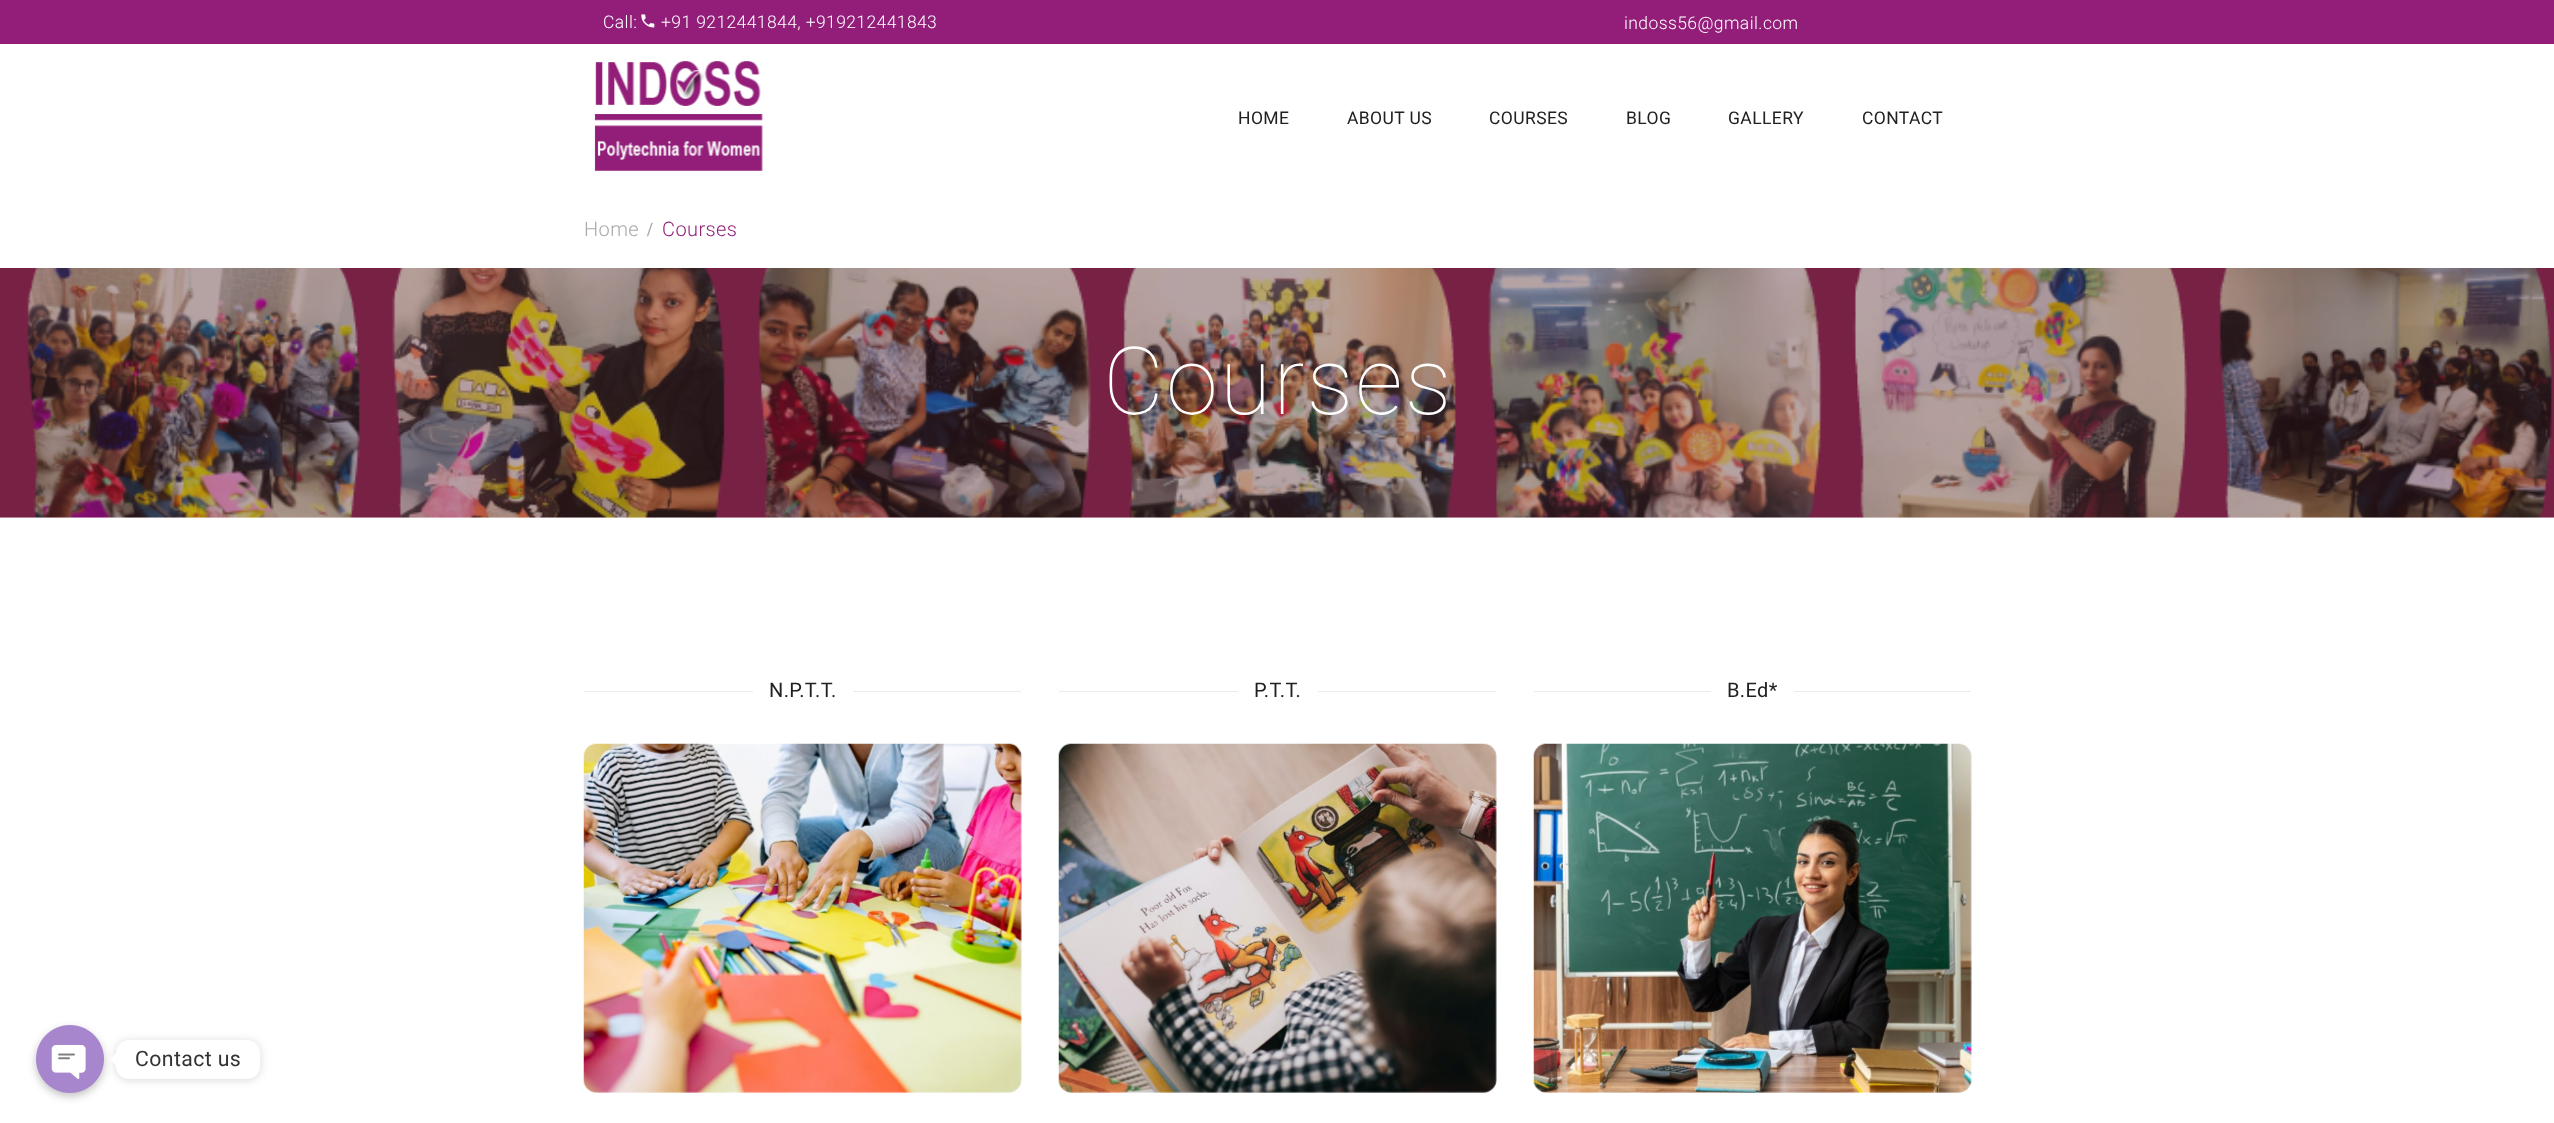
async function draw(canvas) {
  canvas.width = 2554;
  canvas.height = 1123;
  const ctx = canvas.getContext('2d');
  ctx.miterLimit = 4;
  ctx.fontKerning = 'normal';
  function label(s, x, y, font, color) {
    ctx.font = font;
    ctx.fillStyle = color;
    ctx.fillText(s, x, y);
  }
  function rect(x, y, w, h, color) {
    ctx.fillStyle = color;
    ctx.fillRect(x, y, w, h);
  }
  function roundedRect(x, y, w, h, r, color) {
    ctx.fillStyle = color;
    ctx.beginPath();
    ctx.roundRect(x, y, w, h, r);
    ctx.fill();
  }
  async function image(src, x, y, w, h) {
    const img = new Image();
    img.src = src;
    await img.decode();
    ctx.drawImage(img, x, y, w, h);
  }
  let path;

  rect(0, 0, 2554, 1123, '#fff');
  rect(0, 517, 2554, 1, '#fae8e8');
  rect(0, 0, 2554, 44, '#921e79');
  ctx.letterSpacing = '0.4px';
  label('Call:', 603, 28, '300 17.5px Roboto', '#fff');
  await image('assets/img1.png', 641, 14, 14, 14);
  label('+91 9212441844, +919212441843', 661, 28, '300 17.5px Roboto', '#fff');
  label('indoss56@gmail.com', 1624, 29, '300 17.5px Roboto', '#fff');
  await image('assets/img2.png', 594, 61, 169, 110);
  label('HOME', 1238, 124, '17.5px Roboto', '#202121');
  label('ABOUT US', 1347, 124, '17.5px Roboto', '#202121');
  label('COURSES', 1489, 124, '17.5px Roboto', '#202121');
  label('BLOG', 1626, 124, '17.5px Roboto', '#202121');
  label('GALLERY', 1728, 124, '17.5px Roboto', '#202121');
  label('CONTACT', 1862, 124, '17.5px Roboto', '#202121');
  label('Home', 584, 236, '300 20px Roboto', '#a9a9a9');
  label('/', 647, 236, 'bold 20px Liberation Serif', '#a9a9a9');
  label('Courses', 662, 236, '300 20px Roboto', '#921e79');
  await image('assets/img3.png', 0, 268, 2554, 250);
  ctx.letterSpacing = '2px';
  label('Courses', 1103, 414, '100 94px Roboto', '#fff');
  rect(584, 691, 169, 1, '#ebebeb');
  ctx.letterSpacing = '0.4px';
  label('N.P.T.T.', 769, 697, '20px Roboto', '#202121');
  rect(853, 691, 168, 1, '#ebebeb');
  await image('assets/img4.png', 583, 743, 439, 350);
  rect(1059, 691, 179, 1, '#ebebeb');
  label('P.T.T.', 1254, 697, '20px Roboto', '#202121');
  rect(1318, 691, 178, 1, '#ebebeb');
  await image('assets/img5.png', 1058, 743, 439, 350);
  rect(1534, 691, 177, 1, '#ebebeb');
  label('B.Ed*', 1727, 697, '20px Roboto', '#202121');
  rect(1794, 691, 177, 1, '#ebebeb');
  await image('assets/img6.png', 1533, 743, 439, 350);
  ctx.fillStyle = '#00000026';
  ctx.filter = 'blur(5px)';
  ctx.beginPath();
  ctx.roundRect(116, 1041, 144, 39, 13);
  ctx.fill();
  ctx.filter = 'none';
  roundedRect(116, 1040, 144, 39, 13, '#fff');
  path = new Path2D('M116 1053V1065.5L110 1059.5Z');
  ctx.fill(path);
  ctx.fillStyle = '#00000040';
  ctx.filter = 'blur(4px)';
  ctx.beginPath();
  ctx.roundRect(36, 1029, 68, 67, 33.5);
  ctx.fill();
  ctx.filter = 'none';
  await image('assets/img7.png', 36, 1025, 68, 68);
  label('Contact us', 135, 1066, '21.25px Roboto', '#333');
}

draw(document.querySelector('canvas'));
